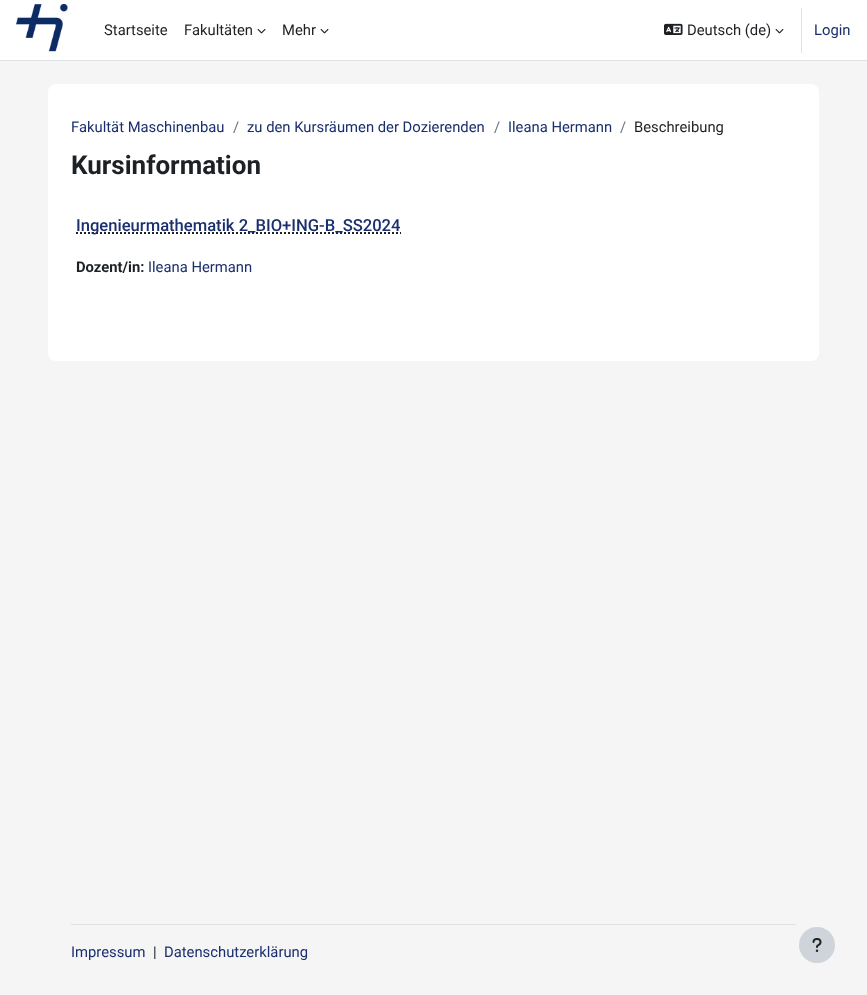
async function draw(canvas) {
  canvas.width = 867;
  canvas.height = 995;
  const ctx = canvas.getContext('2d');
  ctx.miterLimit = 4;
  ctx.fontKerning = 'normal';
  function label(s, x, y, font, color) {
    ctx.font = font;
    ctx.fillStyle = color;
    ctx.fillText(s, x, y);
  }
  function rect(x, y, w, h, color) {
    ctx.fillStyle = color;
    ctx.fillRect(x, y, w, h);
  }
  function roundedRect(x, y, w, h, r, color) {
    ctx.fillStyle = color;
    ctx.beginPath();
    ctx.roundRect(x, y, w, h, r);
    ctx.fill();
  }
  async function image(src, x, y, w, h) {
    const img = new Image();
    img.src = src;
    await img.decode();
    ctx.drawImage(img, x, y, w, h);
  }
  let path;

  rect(0, 0, 867, 995, '#f5f5f5');
  rect(0, 0, 867, 60, '#fff');
  rect(0, 60, 867, 1, '#dee2e6');
  await image('assets/img1.png', 16, 4, 52, 48);
  label('Startseite', 104, 35, '14.8px Roboto', '#1d2125');
  label('Fakultäten', 184, 35, '14.8px Roboto', '#1d2125');
  await image('assets/img2.png', 257, 29, 9, 5);
  label('Mehr', 282, 35, '14.8px Roboto', '#1d2125');
  await image('assets/img2.png', 320, 29, 9, 5);
  await image('assets/img3.png', 664, 23, 19, 12);
  label('Deutsch (de)', 687, 35, '14.8px Roboto', '#1d2125');
  await image('assets/img2.png', 775, 29, 9, 5);
  rect(801, 8, 1, 45, '#dee2e6');
  label('Login', 814, 35, '14.8px Roboto', '#1a2f6e');
  roundedRect(48, 84, 771, 277, 8, '#fff');
  label('Fakultät Maschinenbau', 71, 132, '14.8px Roboto', '#1a2f6e');
  label('/', 233, 132, '14.8px Roboto', '#6a737b');
  label('zu den Kursräumen der Dozierenden', 247, 132, '14.8px Roboto', '#1a2f6e');
  label('/', 494, 132, '14.8px Roboto', '#6a737b');
  label('Ileana Hermann', 508, 132, '14.8px Roboto', '#1a2f6e');
  label('/', 620, 132, '14.8px Roboto', '#6a737b');
  label('Beschreibung', 634, 132, '14.8px Roboto', '#1d2125');
  label('Kursinformation', 71, 174, 'bold 26px Roboto', '#1d2125');
  path = new Path2D('M76 233H401');
  ctx.strokeStyle = '#1d2125';
  ctx.lineWidth = 2;
  ctx.setLineDash([2, 2]);
  ctx.stroke(path);
  label('Ingenieurmathematik 2_BIO+ING-B_SS2024', 76, 231, '500 16.6px Roboto', '#1a2f6e');
  label('Dozent/in:', 76, 272, 'bold 14.8px Roboto', '#1d2125');
  label('Ileana Hermann', 148, 272, '14.8px Roboto', '#1a2f6e');
  rect(71, 924, 725, 1, '#dee2e6');
  label('Impressum', 71, 957, '14.8px Roboto', '#1a2f6e');
  label('|', 153, 957, '14.8px Roboto', '#1d2125');
  label('Datenschutzerklärung', 164, 957, '14.8px Roboto', '#1a2f6e');
  ctx.fillStyle = '#ced4da';
  ctx.beginPath();
  ctx.arc(817, 945, 18, 0, 2 * Math.PI);
  ctx.fill();
  await image('assets/img4.png', 812, 938, 10, 14);
}

draw(document.querySelector('canvas'));
